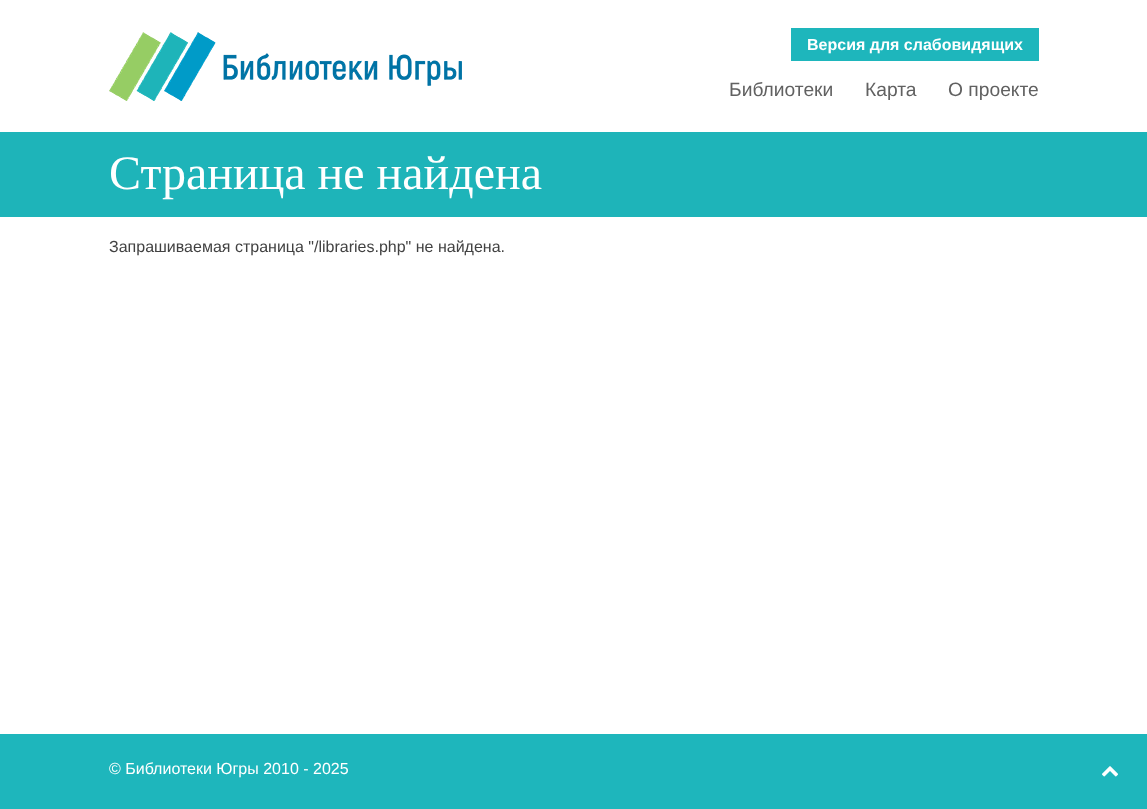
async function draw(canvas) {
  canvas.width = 1147;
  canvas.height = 809;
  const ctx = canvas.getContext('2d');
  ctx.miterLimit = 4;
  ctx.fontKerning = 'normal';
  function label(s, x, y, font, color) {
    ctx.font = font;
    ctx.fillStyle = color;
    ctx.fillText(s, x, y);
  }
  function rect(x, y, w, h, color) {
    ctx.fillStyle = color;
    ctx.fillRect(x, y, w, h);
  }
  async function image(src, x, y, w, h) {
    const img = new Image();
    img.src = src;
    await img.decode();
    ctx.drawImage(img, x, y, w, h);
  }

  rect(0, 0, 1147, 809, '#fff');
  await image('assets/img1.png', 109, 32, 353, 69);
  rect(791, 28, 248, 33, '#1eb6bc');
  label('Версия для слабовидящих', 807, 50, 'bold 16px Liberation Sans', '#fff');
  label('Библиотеки', 729, 96, '19.25px Liberation Sans', '#616161');
  label('Карта', 865, 96, '19.25px Liberation Sans', '#616161');
  label('О проекте', 948, 96, '19.25px Liberation Sans', '#616161');
  rect(0, 132, 1147, 85, '#1eb4b9');
  label('Страница не найдена', 109, 189, '48px Liberation Serif', '#fff');
  label('Запрашиваемая страница "/libraries.php" не найдена.', 109, 252, '16px Liberation Sans', '#424242');
  rect(0, 734, 1147, 75, '#1eb6bc');
  label('© Библиотеки Югры 2010 - 2025', 109, 774, '16px Liberation Sans', '#fff');
  await image('assets/img2.png', 1102, 766, 16, 11);
}

draw(document.querySelector('canvas'));
